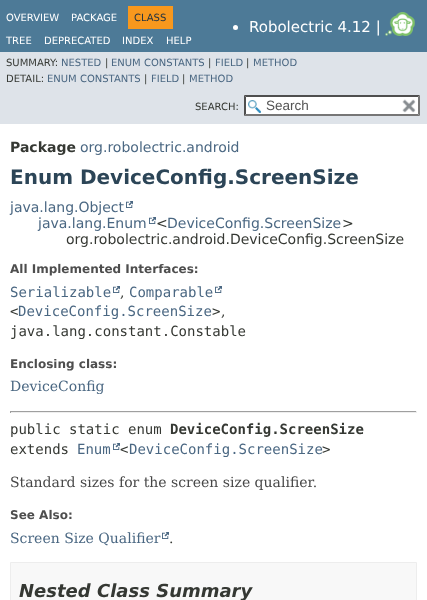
async function draw(canvas) {
  canvas.width = 427;
  canvas.height = 600;
  const ctx = canvas.getContext('2d');
  ctx.miterLimit = 4;
  ctx.fontKerning = 'normal';
  function label(s, x, y, font, color) {
    ctx.font = font;
    ctx.fillStyle = color;
    ctx.fillText(s, x, y);
  }
  function rect(x, y, w, h, color) {
    ctx.fillStyle = color;
    ctx.fillRect(x, y, w, h);
  }
  async function image(src, x, y, w, h) {
    const img = new Image();
    img.src = src;
    await img.decode();
    ctx.drawImage(img, x, y, w, h);
  }
  let path;

  rect(0, 0, 427, 600, '#fff');
  rect(0, 0, 427, 52, '#4d7a97');
  label('OVERVIEW', 6, 21, '10px DejaVu Sans', '#fff');
  label('PACKAGE', 71, 21, '10px DejaVu Sans', '#fff');
  rect(128, 6, 45, 23, '#f8981d');
  label('CLASS', 134, 21, '10px DejaVu Sans', '#253441');
  label('TREE', 6, 44, '10px DejaVu Sans', '#fff');
  label('DEPRECATED', 44, 44, '10px DejaVu Sans', '#fff');
  label('INDEX', 122, 44, '10px DejaVu Sans', '#fff');
  label('HELP', 166, 44, '10px DejaVu Sans', '#fff');
  ctx.beginPath();
  ctx.arc(235.5, 27.5, 2.5, 0, 2 * Math.PI);
  ctx.fill();
  label('Robolectric 4.12 |', 249, 32, '15px DejaVu Sans', '#fff');
  await image('assets/img1.png', 385, 12, 30, 24);
  rect(0, 52, 427, 72, '#dee3e9');
  label('SUMMARY:', 6, 66, '10px DejaVu Sans', '#353833');
  label('NESTED', 61, 66, '10px DejaVu Sans', '#4a6782');
  label('|', 105, 66, '10px DejaVu Sans', '#353833');
  label('ENUM CONSTANTS', 111, 66, '10px DejaVu Sans', '#4a6782');
  label('|', 208, 66, '10px DejaVu Sans', '#353833');
  label('FIELD', 215, 66, '10px DejaVu Sans', '#4a6782');
  label('|', 246, 66, '10px DejaVu Sans', '#353833');
  label('METHOD', 253, 66, '10px DejaVu Sans', '#4a6782');
  label('DETAIL:', 6, 82, '10px DejaVu Sans', '#353833');
  label('ENUM CONSTANTS', 47, 82, '10px DejaVu Sans', '#4a6782');
  label('|', 144, 82, '10px DejaVu Sans', '#353833');
  label('FIELD', 151, 82, '10px DejaVu Sans', '#4a6782');
  label('|', 182, 82, '10px DejaVu Sans', '#353833');
  label('METHOD', 189, 82, '10px DejaVu Sans', '#4a6782');
  label('SEARCH:', 195, 110, '10px DejaVu Sans', '#353833');
  rect(244, 95, 176, 21, '#fff');
  await image('assets/img2.png', 248, 100, 13, 13);
  ctx.fillStyle = '#4f4f4f';
  path = new Path2D('M244 95H420L418 97H246Z');
  ctx.fill(path);
  ctx.fillStyle = '#767676';
  path = new Path2D('M420 95V116L418 114V97Z');
  ctx.fill(path);
  path = new Path2D('M420 116H244L246 114H418Z');
  ctx.fill(path);
  ctx.fillStyle = '#4f4f4f';
  path = new Path2D('M244 116V95L246 97V114Z');
  ctx.fill(path);
  label('Search', 266, 110, '13.5px Liberation Sans', '#545454');
  await image('assets/img3.png', 402, 99, 14, 14);
  label('Package', 10, 152, 'bold 14px DejaVu Sans', '#353833');
  label('org.robolectric.android', 80, 152, '14px DejaVu Sans', '#4a6782');
  label('Enum DeviceConfig.ScreenSize', 10, 184, 'bold 20px DejaVu Sans', '#2c4557');
  label('java.lang.Object', 10, 212, '14px DejaVu Sans', '#4a6782');
  await image('assets/img4.png', 126, 201, 7, 7);
  label('java.lang.Enum', 38, 228, '14px DejaVu Sans', '#4a6782');
  await image('assets/img4.png', 149, 217, 7, 7);
  label('<', 156, 228, '14px DejaVu Sans', '#353833');
  label('DeviceConfig.ScreenSize', 167, 228, '14px DejaVu Sans', '#4a6782');
  label('>', 342, 228, '14px DejaVu Sans', '#353833');
  label('org.robolectric.android.DeviceConfig.ScreenSize', 66, 244, '14px DejaVu Sans', '#353833');
  label('All Implemented Interfaces:', 10, 273, 'bold 12px DejaVu Sans', '#4e4e4e');
  label('Serializable', 10, 297, '14px DejaVu Sans Mono', '#4a6782');
  await image('assets/img4.png', 113, 286, 7, 7);
  label('Comparable', 129, 297, '14px DejaVu Sans Mono', '#4a6782');
  await image('assets/img4.png', 215, 286, 7, 7);
  label('<', 10, 316, '14px DejaVu Sans Mono', '#353833');
  label('DeviceConfig.ScreenSize', 18, 316, '14px DejaVu Sans Mono', '#4a6782');
  label('>', 212, 316, '14px DejaVu Sans Mono', '#353833');
  label(',', 120, 297, '14px DejaVu Serif', '#353833');
  label(',', 221, 316, '14px DejaVu Serif', '#353833');
  label('java.lang.constant.Constable', 10, 336, '14px DejaVu Sans Mono', '#353833');
  label('Enclosing class:', 10, 368, 'bold 12px DejaVu Sans', '#4e4e4e');
  label('DeviceConfig', 10, 391, '14px DejaVu Serif', '#4a6782');
  rect(10, 411, 407, 1, '#9f9f9f');
  rect(416, 411, 1, 2, '#eee');
  rect(10, 412, 407, 1, '#eee');
  rect(10, 411, 1, 2, '#9f9f9f');
  label('public static enum', 10, 434, '14px DejaVu Sans Mono', '#353833');
  label('DeviceConfig.ScreenSize', 170, 434, 'bold 14px DejaVu Sans Mono', '#353833');
  label('extends', 10, 454, '14px DejaVu Sans Mono', '#353833');
  label('Enum', 77, 454, '14px DejaVu Sans Mono', '#4a6782');
  await image('assets/img4.png', 113, 443, 7, 7);
  label('<', 120, 454, '14px DejaVu Sans Mono', '#353833');
  label('DeviceConfig.ScreenSize', 129, 454, '14px DejaVu Sans Mono', '#4a6782');
  label('>', 322, 454, '14px DejaVu Sans Mono', '#353833');
  label('Standard sizes for the screen size qualifier.', 10, 487, '14px DejaVu Serif', '#474747');
  label('See Also:', 10, 519, 'bold 12px DejaVu Sans', '#4e4e4e');
  label('Screen Size Qualifier', 10, 543, '14px DejaVu Serif', '#4a6782');
  await image('assets/img4.png', 162, 532, 7, 7);
  label('.', 169, 543, '14px DejaVu Serif', '#353833');
  ctx.fillStyle = '#f8f8f8';
  ctx.beginPath();
  ctx.rect(10.5, 562.5, 406, 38);
  ctx.fill();
  ctx.strokeStyle = '#ededed';
  ctx.stroke();
  label('Nested Class Summary', 19, 597, 'italic bold 18px DejaVu Sans', '#353833');
}

draw(document.querySelector('canvas'));
